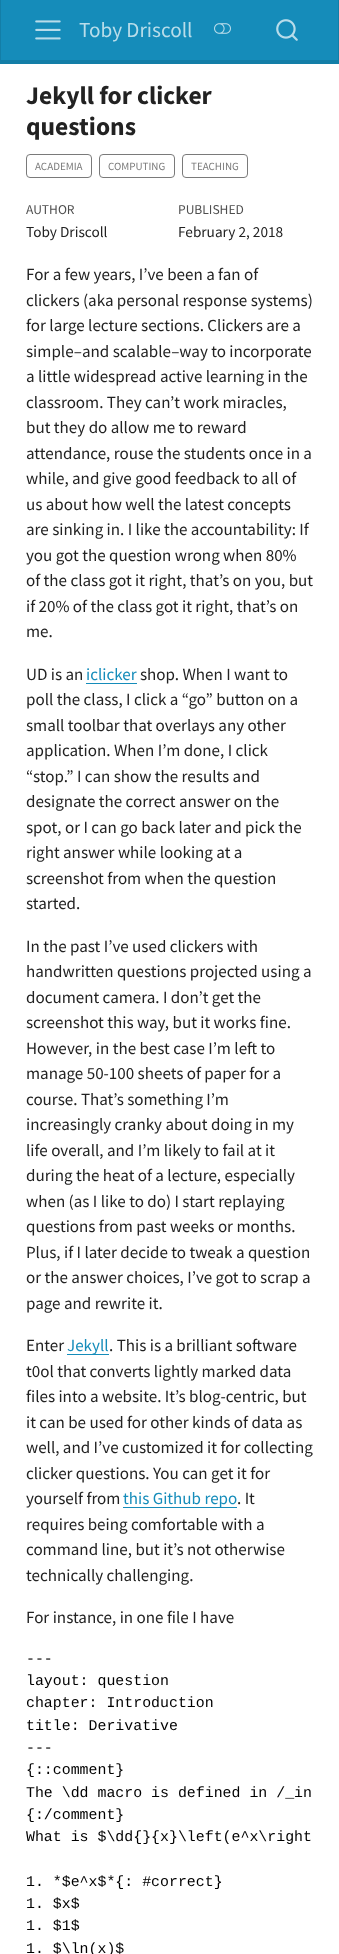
async function draw(canvas) {
  canvas.width = 339;
  canvas.height = 1954;
  const ctx = canvas.getContext('2d');
  ctx.miterLimit = 4;
  ctx.fontKerning = 'normal';
  function label(s, x, y, font, color) {
    ctx.font = font;
    ctx.fillStyle = color;
    ctx.fillText(s, x, y);
  }
  function rect(x, y, w, h, color) {
    ctx.fillStyle = color;
    ctx.fillRect(x, y, w, h);
  }
  async function image(src, x, y, w, h) {
    const img = new Image();
    img.src = src;
    await img.decode();
    ctx.drawImage(img, x, y, w, h);
  }

  rect(0, 0, 339, 1954, '#fff');
  rect(1, 0, 337, 60, '#158cba');
  rect(338, 0, 1, 64, '#137ea7');
  rect(0, 60, 339, 4, '#137ea7');
  rect(0, 0, 1, 64, '#137ea7');
  await image('assets/img1.png', 35, 20, 26, 20);
  label('Toby Driscoll', 79, 37, '21.25px Source Sans Pro', '#b9ddea');
  await image('assets/img2.png', 214, 23, 17, 11);
  await image('assets/img3.png', 276, 19, 22, 22);
  label('Jekyll for clicker', 26, 104, 'bold 25.5px Source Sans Pro', '#222');
  label('questions', 26, 135, 'bold 25.5px Source Sans Pro', '#222');
  ctx.beginPath();
  ctx.roundRect(26.5, 154.5, 65, 23, 3.5);
  ctx.strokeStyle = '#7a7a7a';
  ctx.stroke();
  label('ACADEMIA', 35, 170, '11px Source Sans Pro', '#7a7a7a');
  ctx.beginPath();
  ctx.roundRect(99.5, 154.5, 75, 23, 3.5);
  ctx.stroke();
  label('COMPUTING', 108, 170, '11px Source Sans Pro', '#7a7a7a');
  ctx.beginPath();
  ctx.roundRect(182.5, 154.5, 65, 23, 3.5);
  ctx.stroke();
  label('TEACHING', 191, 170, '11px Source Sans Pro', '#7a7a7a');
  label('AUTHOR', 26, 214, '13.5px Source Sans Pro', '#4e4e4e');
  label('Toby Driscoll', 26, 237, '15.25px Source Sans Pro', '#222');
  label('PUBLISHED', 178, 214, '13.5px Source Sans Pro', '#4e4e4e');
  label('February 2, 2018', 178, 237, '15.25px Source Sans Pro', '#222');
  label('For a few years, I’ve been a fan of', 26, 280, '17px Source Sans Pro', '#222');
  label('clickers (aka personal response systems)', 26, 306, '17px Source Sans Pro', '#222');
  label('for large lecture sections. Clickers are a', 26, 331, '17px Source Sans Pro', '#222');
  label('simple–and scalable–way to incorporate', 26, 357, '17px Source Sans Pro', '#222');
  label('a little widespread active learning in the', 26, 382, '17px Source Sans Pro', '#222');
  label('classroom. They can’t work miracles,', 26, 408, '17px Source Sans Pro', '#222');
  label('but they do allow me to reward', 26, 433, '17px Source Sans Pro', '#222');
  label('attendance, rouse the students once in a', 26, 459, '17px Source Sans Pro', '#222');
  label('while, and give good feedback to all of', 26, 484, '17px Source Sans Pro', '#222');
  label('us about how well the latest concepts', 26, 510, '17px Source Sans Pro', '#222');
  label('are sinking in. I like the accountability: If', 26, 535, '17px Source Sans Pro', '#222');
  label('you got the question wrong when 80%', 26, 561, '17px Source Sans Pro', '#222');
  label('of the class got it right, that’s on you, but', 26, 586, '17px Source Sans Pro', '#222');
  label('if 20% of the class got it right, that’s on', 26, 612, '17px Source Sans Pro', '#222');
  label('me.', 26, 637, '17px Source Sans Pro', '#222');
  label('UD is an', 26, 680, '17px Source Sans Pro', '#222');
  label('iclicker', 86, 680, '17px Source Sans Pro', '#158cba');
  rect(86, 683, 51, 1, '#158cba');
  label('shop. When I want to', 140, 680, '17px Source Sans Pro', '#222');
  label('poll the class, I click a “go” button on a', 26, 705, '17px Source Sans Pro', '#222');
  label('small toolbar that overlays any other', 26, 731, '17px Source Sans Pro', '#222');
  label('application. When I’m done, I click', 26, 756, '17px Source Sans Pro', '#222');
  label('“stop.” I can show the results and', 26, 782, '17px Source Sans Pro', '#222');
  label('designate the correct answer on the', 26, 807, '17px Source Sans Pro', '#222');
  label('spot, or I can go back later and pick the', 26, 833, '17px Source Sans Pro', '#222');
  label('right answer while looking at a', 26, 858, '17px Source Sans Pro', '#222');
  label('screenshot from when the question', 26, 884, '17px Source Sans Pro', '#222');
  label('started.', 26, 909, '17px Source Sans Pro', '#222');
  label('In the past I’ve used clickers with', 26, 952, '17px Source Sans Pro', '#222');
  label('handwritten questions projected using a', 26, 977, '17px Source Sans Pro', '#222');
  label('document camera. I don’t get the', 26, 1003, '17px Source Sans Pro', '#222');
  label('screenshot this way, but it works fine.', 26, 1028, '17px Source Sans Pro', '#222');
  label('However, in the best case I’m left to', 26, 1054, '17px Source Sans Pro', '#222');
  label('manage 50-100 sheets of paper for a', 26, 1079, '17px Source Sans Pro', '#222');
  label('course. That’s something I’m', 26, 1105, '17px Source Sans Pro', '#222');
  label('increasingly cranky about doing in my', 26, 1130, '17px Source Sans Pro', '#222');
  label('life overall, and I’m likely to fail at it', 26, 1156, '17px Source Sans Pro', '#222');
  label('during the heat of a lecture, especially', 26, 1181, '17px Source Sans Pro', '#222');
  label('when (as I like to do) I start replaying', 26, 1207, '17px Source Sans Pro', '#222');
  label('questions from past weeks or months.', 26, 1232, '17px Source Sans Pro', '#222');
  label('Plus, if I later decide to tweak a question', 26, 1258, '17px Source Sans Pro', '#222');
  label('or the answer choices, I’ve got to scrap a', 26, 1283, '17px Source Sans Pro', '#222');
  label('page and rewrite it.', 26, 1309, '17px Source Sans Pro', '#222');
  label('Enter', 26, 1351, '17px Source Sans Pro', '#222');
  rect(67, 1354, 42, 1, '#158cba');
  label('Jekyll', 67, 1351, '17px Source Sans Pro', '#158cba');
  label('. This is a brilliant software', 109, 1351, '17px Source Sans Pro', '#222');
  label('t0ol that converts lightly marked data', 26, 1377, '17px Source Sans Pro', '#222');
  label('files into a website. It’s blog-centric, but', 26, 1402, '17px Source Sans Pro', '#222');
  label('it can be used for other kinds of data as', 26, 1428, '17px Source Sans Pro', '#222');
  label('well, and I’ve customized it for collecting', 26, 1453, '17px Source Sans Pro', '#222');
  label('clicker questions. You can get it for', 26, 1479, '17px Source Sans Pro', '#222');
  label('yourself from', 26, 1504, '17px Source Sans Pro', '#222');
  rect(123, 1507, 114, 1, '#158cba');
  label('this Github repo', 123, 1504, '17px Source Sans Pro', '#158cba');
  label('. It', 237, 1504, '17px Source Sans Pro', '#222');
  label('requires being comfortable with a', 26, 1530, '17px Source Sans Pro', '#222');
  label('command line, but it’s not otherwise', 26, 1555, '17px Source Sans Pro', '#222');
  label('technically challenging.', 26, 1581, '17px Source Sans Pro', '#222');
  label('For instance, in one file I have', 26, 1623, '17px Source Sans Pro', '#222');
  label('---', 26, 1663, '14.9px Liberation Mono', '#000');
  label('layout: question', 26, 1685, '14.9px Liberation Mono', '#000');
  label('chapter: Introduction', 26, 1707, '14.9px Liberation Mono', '#000');
  label('title: Derivative', 26, 1730, '14.9px Liberation Mono', '#000');
  label('---', 26, 1752, '14.9px Liberation Mono', '#000');
  label('{::comment}', 26, 1774, '14.9px Liberation Mono', '#000');
  label('The \\dd macro is defined in /_in', 26, 1797, '14.9px Liberation Mono', '#000');
  label('{:/comment}', 26, 1819, '14.9px Liberation Mono', '#000');
  ctx.save();
  ctx.beginPath();
  ctx.roundRect(26, 1648, 288, 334, 4);
  ctx.clip();
  label('What is $\\dd{}{x}\\left(e^x\\right', 26, 1841, '14.9px Liberation Mono', '#000');
  ctx.restore();
  label('1. *$e^x$*{: #correct}', 26, 1886, '14.9px Liberation Mono', '#000');
  label('1. $x$', 26, 1908, '14.9px Liberation Mono', '#000');
  label('1. $1$', 26, 1930, '14.9px Liberation Mono', '#000');
  label('1. $\\ln(x)$', 26, 1953, '14.9px Liberation Mono', '#000');
}

draw(document.querySelector('canvas'));
